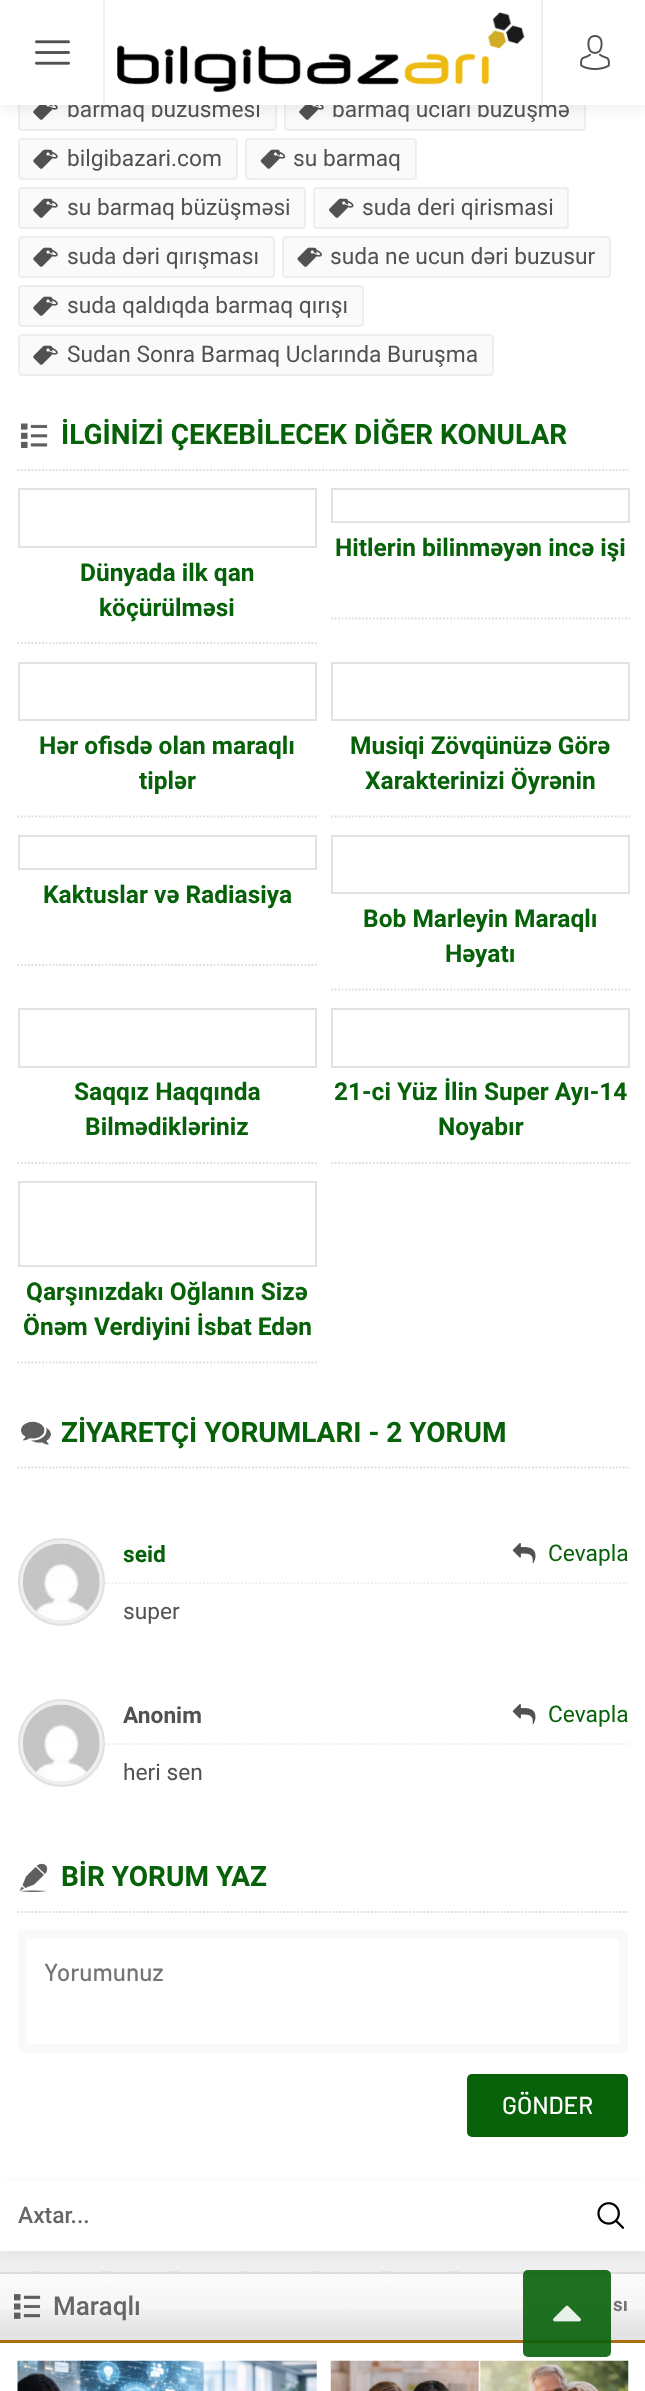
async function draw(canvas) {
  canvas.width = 645;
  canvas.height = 2391;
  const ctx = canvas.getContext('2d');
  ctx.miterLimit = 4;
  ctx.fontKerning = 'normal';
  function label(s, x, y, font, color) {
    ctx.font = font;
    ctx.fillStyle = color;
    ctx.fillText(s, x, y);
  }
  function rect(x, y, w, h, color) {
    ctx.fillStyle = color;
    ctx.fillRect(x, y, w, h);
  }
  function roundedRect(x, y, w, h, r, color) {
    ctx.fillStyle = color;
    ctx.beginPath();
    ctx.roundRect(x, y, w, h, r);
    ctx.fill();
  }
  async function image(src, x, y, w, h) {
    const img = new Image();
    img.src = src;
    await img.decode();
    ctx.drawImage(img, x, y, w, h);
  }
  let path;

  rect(0, 0, 645, 2391, '#efefef');
  rect(0, 105, 645, 2076, '#fff');
  ctx.fillStyle = '#fafafa';
  ctx.beginPath();
  ctx.roundRect(19, 90, 257, 40, 3);
  ctx.fill();
  ctx.strokeStyle = '#eee';
  ctx.lineWidth = 2;
  ctx.stroke();
  await image('assets/img4.png', 33, 105, 25, 15);
  ctx.beginPath();
  ctx.roundRect(285, 90, 300, 40, 3);
  ctx.fill();
  ctx.stroke();
  await image('assets/img4.png', 299, 105, 25, 15);
  ctx.fillStyle = '#0000001a';
  ctx.filter = 'blur(9px)';
  ctx.beginPath();
  ctx.rect(0, 0, 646, 105);
  ctx.fill();
  ctx.filter = 'none';
  label('barmaq büzüsmesi', 67, 117, '22.75px Roboto', '#515151');
  label('barmaq ucları büzüşmə', 332, 117, '22.75px Roboto', '#515151');
  rect(0, 0, 645, 105, '#fff');
  rect(103, 0, 2, 105, '#eee');
  await image('assets/img1.png', 35, 40, 35, 25);
  await image('assets/img2.png', 117, 12, 408, 81);
  rect(541, 0, 2, 105, '#eee');
  await image('assets/img3.png', 580, 35, 30, 35);
  ctx.fillStyle = '#fafafa';
  ctx.beginPath();
  ctx.roundRect(19, 139, 218, 40, 3);
  ctx.fill();
  ctx.stroke();
  await image('assets/img5.png', 33, 149, 25, 20);
  label('bilgibazari.com', 67, 166, '22.75px Roboto', '#515151');
  ctx.fillStyle = '#fafafa';
  ctx.beginPath();
  ctx.roundRect(246, 139, 170, 40, 3);
  ctx.fill();
  ctx.stroke();
  await image('assets/img6.png', 260, 149, 26, 20);
  label('su barmaq', 293, 166, '22.75px Roboto', '#515151');
  ctx.fillStyle = '#fafafa';
  ctx.beginPath();
  ctx.roundRect(19, 188, 286, 40, 3);
  ctx.fill();
  ctx.stroke();
  await image('assets/img5.png', 33, 198, 25, 20);
  label('su barmaq büzüşməsi', 67, 215, '22.75px Roboto', '#515151');
  ctx.fillStyle = '#fafafa';
  ctx.beginPath();
  ctx.roundRect(314, 188, 254, 40, 3);
  ctx.fill();
  ctx.stroke();
  await image('assets/img7.png', 329, 198, 25, 20);
  label('suda deri qirismasi', 362, 215, '22.75px Roboto', '#515151');
  ctx.fillStyle = '#fafafa';
  ctx.beginPath();
  ctx.roundRect(19, 237, 255, 40, 3);
  ctx.fill();
  ctx.stroke();
  await image('assets/img5.png', 33, 247, 25, 20);
  label('suda dəri qırışması', 67, 264, '22.75px Roboto', '#515151');
  ctx.fillStyle = '#fafafa';
  ctx.beginPath();
  ctx.roundRect(283, 237, 327, 40, 3);
  ctx.fill();
  ctx.stroke();
  await image('assets/img8.png', 297, 247, 25, 20);
  label('suda ne ucun dəri buzusur', 330, 264, '22.75px Roboto', '#515151');
  ctx.fillStyle = '#fafafa';
  ctx.beginPath();
  ctx.roundRect(19, 286, 344, 40, 3);
  ctx.fill();
  ctx.stroke();
  await image('assets/img5.png', 33, 296, 25, 20);
  label('suda qaldıqda barmaq qırışı', 67, 313, '22.75px Roboto', '#515151');
  ctx.fillStyle = '#fafafa';
  ctx.beginPath();
  ctx.roundRect(19, 335, 474, 40, 3);
  ctx.fill();
  ctx.stroke();
  await image('assets/img5.png', 33, 345, 25, 20);
  label('Sudan Sonra Barmaq Uclarında Buruşma', 67, 362, '22.75px Roboto', '#515151');
  path = new Path2D('M17.5 470H628');
  ctx.strokeStyle = '#ddd';
  ctx.lineWidth = 1.8;
  ctx.setLineDash([1.75, 1.75]);
  ctx.stroke(path);
  await image('assets/img9.png', 21, 423, 27, 25);
  label('İLGİNİZİ ÇEKEBİLECEK DİĞER KONULAR', 61, 444, 'bold 28px Roboto', '#076108');
  path = new Path2D('M331 618.5H630');
  ctx.stroke(path);
  ctx.strokeStyle = '#e2e2e2';
  ctx.lineWidth = 2;
  ctx.setLineDash([]);
  ctx.strokeRect(332, 489, 297, 33);
  label('Hitlerin bilinməyən incə işi', 335, 556, 'bold 24.5px Roboto', '#076108');
  path = new Path2D('M17.5 643H317');
  ctx.strokeStyle = '#ddd';
  ctx.lineWidth = 1.8;
  ctx.setLineDash([1.75, 1.75]);
  ctx.stroke(path);
  ctx.strokeStyle = '#e2e2e2';
  ctx.lineWidth = 2;
  ctx.setLineDash([]);
  ctx.strokeRect(19, 489, 297, 58);
  label('Dünyada ilk qan', 80, 581, 'bold 24.5px Roboto', '#076108');
  label('köçürülməsi', 99, 616, 'bold 24.5px Roboto', '#076108');
  path = new Path2D('M17.5 816.5H317');
  ctx.strokeStyle = '#ddd';
  ctx.lineWidth = 1.8;
  ctx.setLineDash([1.75, 1.75]);
  ctx.stroke(path);
  ctx.strokeStyle = '#e2e2e2';
  ctx.lineWidth = 2;
  ctx.setLineDash([]);
  ctx.strokeRect(19, 663, 297, 57);
  label('Hər ofisdə olan maraqlı', 39, 754, 'bold 24.5px Roboto', '#076108');
  label('tiplər', 139, 789, 'bold 24.5px Roboto', '#076108');
  path = new Path2D('M331 816.5H630');
  ctx.strokeStyle = '#ddd';
  ctx.lineWidth = 1.8;
  ctx.setLineDash([1.75, 1.75]);
  ctx.stroke(path);
  ctx.strokeStyle = '#e2e2e2';
  ctx.lineWidth = 2;
  ctx.setLineDash([]);
  ctx.strokeRect(332, 663, 297, 57);
  label('Musiqi Zövqünüzə Görə', 350, 754, 'bold 24.5px Roboto', '#076108');
  label('Xarakterinizi Öyrənin', 365, 789, 'bold 24.5px Roboto', '#076108');
  path = new Path2D('M17.5 965H317');
  ctx.strokeStyle = '#ddd';
  ctx.lineWidth = 1.8;
  ctx.setLineDash([1.75, 1.75]);
  ctx.stroke(path);
  ctx.strokeStyle = '#e2e2e2';
  ctx.lineWidth = 2;
  ctx.setLineDash([]);
  ctx.strokeRect(19, 836, 297, 33);
  label('Kaktuslar və Radiasiya', 43, 903, 'bold 24.5px Roboto', '#076108');
  path = new Path2D('M331 989.5H630');
  ctx.strokeStyle = '#ddd';
  ctx.lineWidth = 1.8;
  ctx.setLineDash([1.75, 1.75]);
  ctx.stroke(path);
  ctx.strokeStyle = '#e2e2e2';
  ctx.lineWidth = 2;
  ctx.setLineDash([]);
  ctx.strokeRect(332, 836, 297, 57);
  label('Bob Marleyin Maraqlı', 363, 927, 'bold 24.5px Roboto', '#076108');
  label('Həyatı', 445, 962, 'bold 24.5px Roboto', '#076108');
  path = new Path2D('M17.5 1163H317');
  ctx.strokeStyle = '#ddd';
  ctx.lineWidth = 1.8;
  ctx.setLineDash([1.75, 1.75]);
  ctx.stroke(path);
  ctx.strokeStyle = '#e2e2e2';
  ctx.lineWidth = 2;
  ctx.setLineDash([]);
  ctx.strokeRect(19, 1009, 297, 58);
  label('Saqqız Haqqında', 74, 1100, 'bold 24.5px Roboto', '#076108');
  label('Bilmədikləriniz', 85, 1135, 'bold 24.5px Roboto', '#076108');
  path = new Path2D('M331 1163H630');
  ctx.strokeStyle = '#ddd';
  ctx.lineWidth = 1.8;
  ctx.setLineDash([1.75, 1.75]);
  ctx.stroke(path);
  ctx.strokeStyle = '#e2e2e2';
  ctx.lineWidth = 2;
  ctx.setLineDash([]);
  ctx.strokeRect(332, 1009, 297, 58);
  label('21-ci Yüz İlin Super Ayı-14', 334, 1100, 'bold 24.5px Roboto', '#076108');
  label('Noyabır', 438, 1135, 'bold 24.5px Roboto', '#076108');
  path = new Path2D('M17.5 1362.5H317');
  ctx.strokeStyle = '#ddd';
  ctx.lineWidth = 1.8;
  ctx.setLineDash([1.75, 1.75]);
  ctx.stroke(path);
  ctx.strokeStyle = '#e2e2e2';
  ctx.lineWidth = 2;
  ctx.setLineDash([]);
  ctx.strokeRect(19, 1182, 297, 84);
  label('Qarşınızdakı Oğlanın Sizə', 26, 1300, 'bold 24.5px Roboto', '#076108');
  label('Önəm Verdiyini İsbat Edən', 23, 1335, 'bold 24.5px Roboto', '#076108');
  path = new Path2D('M17.5 1467.5H628');
  ctx.strokeStyle = '#ddd';
  ctx.lineWidth = 1.8;
  ctx.setLineDash([1.75, 1.75]);
  ctx.stroke(path);
  await image('assets/img10.png', 21, 1421, 30, 24);
  label('ZİYARETÇİ YORUMLARI - 2 YORUM', 61, 1442, 'bold 28px Roboto', '#076108');
  path = new Path2D('M17.5 1583H628');
  ctx.strokeStyle = '#eee';
  ctx.stroke(path);
  ctx.fillStyle = '#efefef';
  ctx.beginPath();
  ctx.roundRect(19, 1539, 85, 86, 42.5);
  ctx.fill();
  ctx.strokeStyle = '#e1e0e0';
  ctx.lineWidth = 2;
  ctx.setLineDash([]);
  ctx.stroke();
  await image('assets/img11.png', 23, 1543, 77, 77);
  label('seid', 123, 1562, 'bold 22.75px Roboto', '#076108');
  await image('assets/img12.png', 512, 1543, 24, 21);
  label('Cevapla', 548, 1561, '22.75px Roboto', '#076108');
  label('super', 123, 1619, '22.75px Roboto', '#515151');
  path = new Path2D('M17.5 1744H628');
  ctx.strokeStyle = '#eee';
  ctx.lineWidth = 1.8;
  ctx.setLineDash([1.75, 1.75]);
  ctx.stroke(path);
  ctx.fillStyle = '#efefef';
  ctx.beginPath();
  ctx.roundRect(19, 1700, 85, 86, 42.5);
  ctx.fill();
  ctx.strokeStyle = '#e1e0e0';
  ctx.lineWidth = 2;
  ctx.setLineDash([]);
  ctx.stroke();
  await image('assets/img11.png', 23, 1704, 77, 77);
  label('Anonim', 123, 1723, 'bold 22.75px Roboto', '#515151');
  await image('assets/img12.png', 512, 1704, 24, 21);
  label('Cevapla', 548, 1722, '22.75px Roboto', '#076108');
  label('heri sen', 123, 1780, '22.75px Roboto', '#515151');
  path = new Path2D('M17.5 1912H628');
  ctx.strokeStyle = '#ddd';
  ctx.lineWidth = 1.8;
  ctx.setLineDash([1.75, 1.75]);
  ctx.stroke(path);
  await image('assets/img13.png', 19, 1863, 29, 29);
  label('BİR YORUM YAZ', 61, 1886, 'bold 28px Roboto', '#076108');
  ctx.beginPath();
  ctx.roundRect(22.5, 1934.5, 601, 114, 0.5);
  ctx.strokeStyle = '#f7f9fa';
  ctx.lineWidth = 9;
  ctx.setLineDash([]);
  ctx.stroke();
  label('Yorumunuz', 44, 1981, '500 24.5px Barlow', '#757575');
  roundedRect(467, 2074, 161, 63, 5, '#076108');
  label('GÖNDER', 502, 2114, '500 24.5px Barlow', '#fff');
  ctx.fillStyle = '#0000000d';
  ctx.filter = 'blur(7px)';
  ctx.beginPath();
  ctx.rect(0, 2184, 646, 70);
  ctx.fill();
  ctx.filter = 'none';
  rect(0, 2181, 645, 70, '#fff');
  label('Axtar...', 18, 2223, '500 22.75px Roboto', '#666');
  await image('assets/img14.png', 597, 2202, 28, 27);
  await image('assets/img15.png', 0, 2271, 645, 69);
  rect(0, 2272, 645, 2, '#ddd');
  await image('assets/img16.png', 14, 2294, 27, 26);
  label('Maraqlı', 53, 2315, '500 26px Roboto', '#666');
  label('sı', 613, 2311, 'bold 19px Roboto', '#757575');
  rect(0, 2340, 645, 3, '#aa6e11');
  rect(0, 2343, 645, 48, '#fff');
  await image('assets/img17.png', 17, 2360, 300, 31);
  await image('assets/img18.png', 330, 2360, 299, 31);
  roundedRect(523, 2270, 88, 87, 5, '#076108e6');
  await image('assets/img19.png', 553, 2305, 28, 17);
}

draw(document.querySelector('canvas'));
